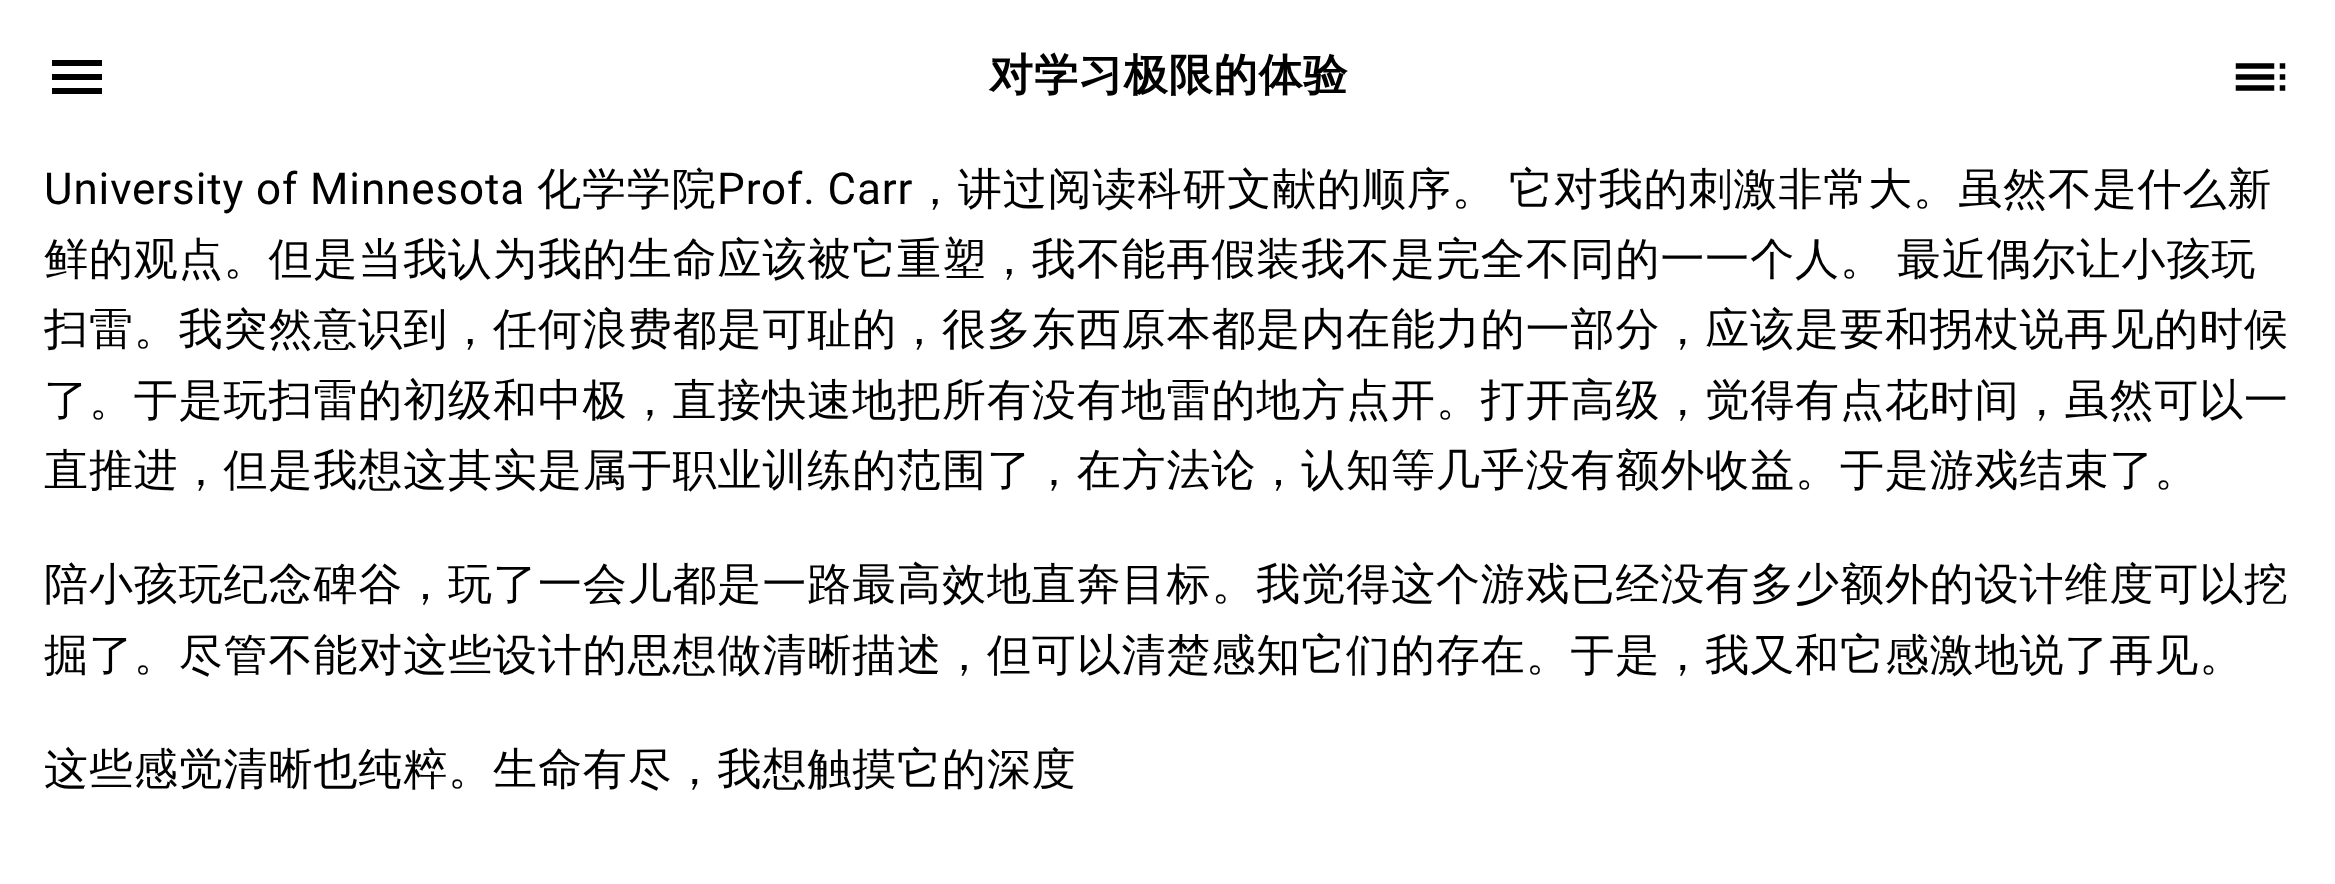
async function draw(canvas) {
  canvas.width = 2335;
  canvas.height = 884;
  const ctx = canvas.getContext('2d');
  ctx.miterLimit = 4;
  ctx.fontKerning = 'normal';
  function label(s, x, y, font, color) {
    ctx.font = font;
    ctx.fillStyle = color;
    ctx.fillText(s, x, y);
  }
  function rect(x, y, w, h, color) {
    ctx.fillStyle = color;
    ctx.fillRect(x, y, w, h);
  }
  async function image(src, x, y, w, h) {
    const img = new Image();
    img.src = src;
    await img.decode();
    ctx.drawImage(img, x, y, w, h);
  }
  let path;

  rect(0, 0, 2335, 884, '#fff');
  ctx.fillStyle = '#000';
  path = new Path2D('M52 94H102V88H52ZM52 80H102V74H52ZM52 60V66H102V60Z');
  ctx.fill(path);
  ctx.letterSpacing = '0.9px';
  label('对学习极限的体验', 989, 90, 'bold 44px WenQuanYi Zen Hei', '#000');
  await image('assets/img1.png', 2235, 63, 51, 28);
  label('University of Minnesota', 44, 204, '44px Roboto', '#000');
  label('化学学院', 537, 204, '500 44px WenQuanYi Zen Hei', '#000');
  label('Prof. Carr', 717, 204, '44px Roboto', '#000');
  label('，讲过阅读科研文献的顺序。', 913, 204, '500 44px WenQuanYi Zen Hei', '#000');
  label('它对我的刺激非常大。虽然不是什么新', 1509, 204, '500 44px WenQuanYi Zen Hei', '#000');
  ctx.wordSpacing = '-2px';
  label('鲜的观点。但是当我认为我的生命应该被它重塑，我不能再假装我不是完全不同的一一个人。 最近偶尔让小孩玩', 44, 274, '500 44px WenQuanYi Zen Hei', '#000');
  ctx.wordSpacing = '0px';
  label('扫雷。我突然意识到，任何浪费都是可耻的，很多东西原本都是内在能力的一部分，应该是要和拐杖说再见的时候', 44, 344, '500 44px WenQuanYi Zen Hei', '#000');
  label('了。于是玩扫雷的初级和中极，直接快速地把所有没有地雷的地方点开。打开高级，觉得有点花时间，虽然可以一', 44, 415, '500 44px WenQuanYi Zen Hei', '#000');
  label('直推进，但是我想这其实是属于职业训练的范围了，在方法论，认知等几乎没有额外收益。于是游戏结束了。', 44, 485, '500 44px WenQuanYi Zen Hei', '#000');
  label('陪小孩玩纪念碑谷，玩了一会儿都是一路最高效地直奔目标。我觉得这个游戏已经没有多少额外的设计维度可以挖', 44, 599, '500 44px WenQuanYi Zen Hei', '#000');
  label('掘了。尽管不能对这些设计的思想做清晰描述，但可以清楚感知它们的存在。于是，我又和它感激地说了再见。', 44, 670, '500 44px WenQuanYi Zen Hei', '#000');
  label('这些感觉清晰也纯粹。生命有尽，我想触摸它的深度', 44, 784, '500 44px WenQuanYi Zen Hei', '#000');
}

draw(document.querySelector('canvas'));
